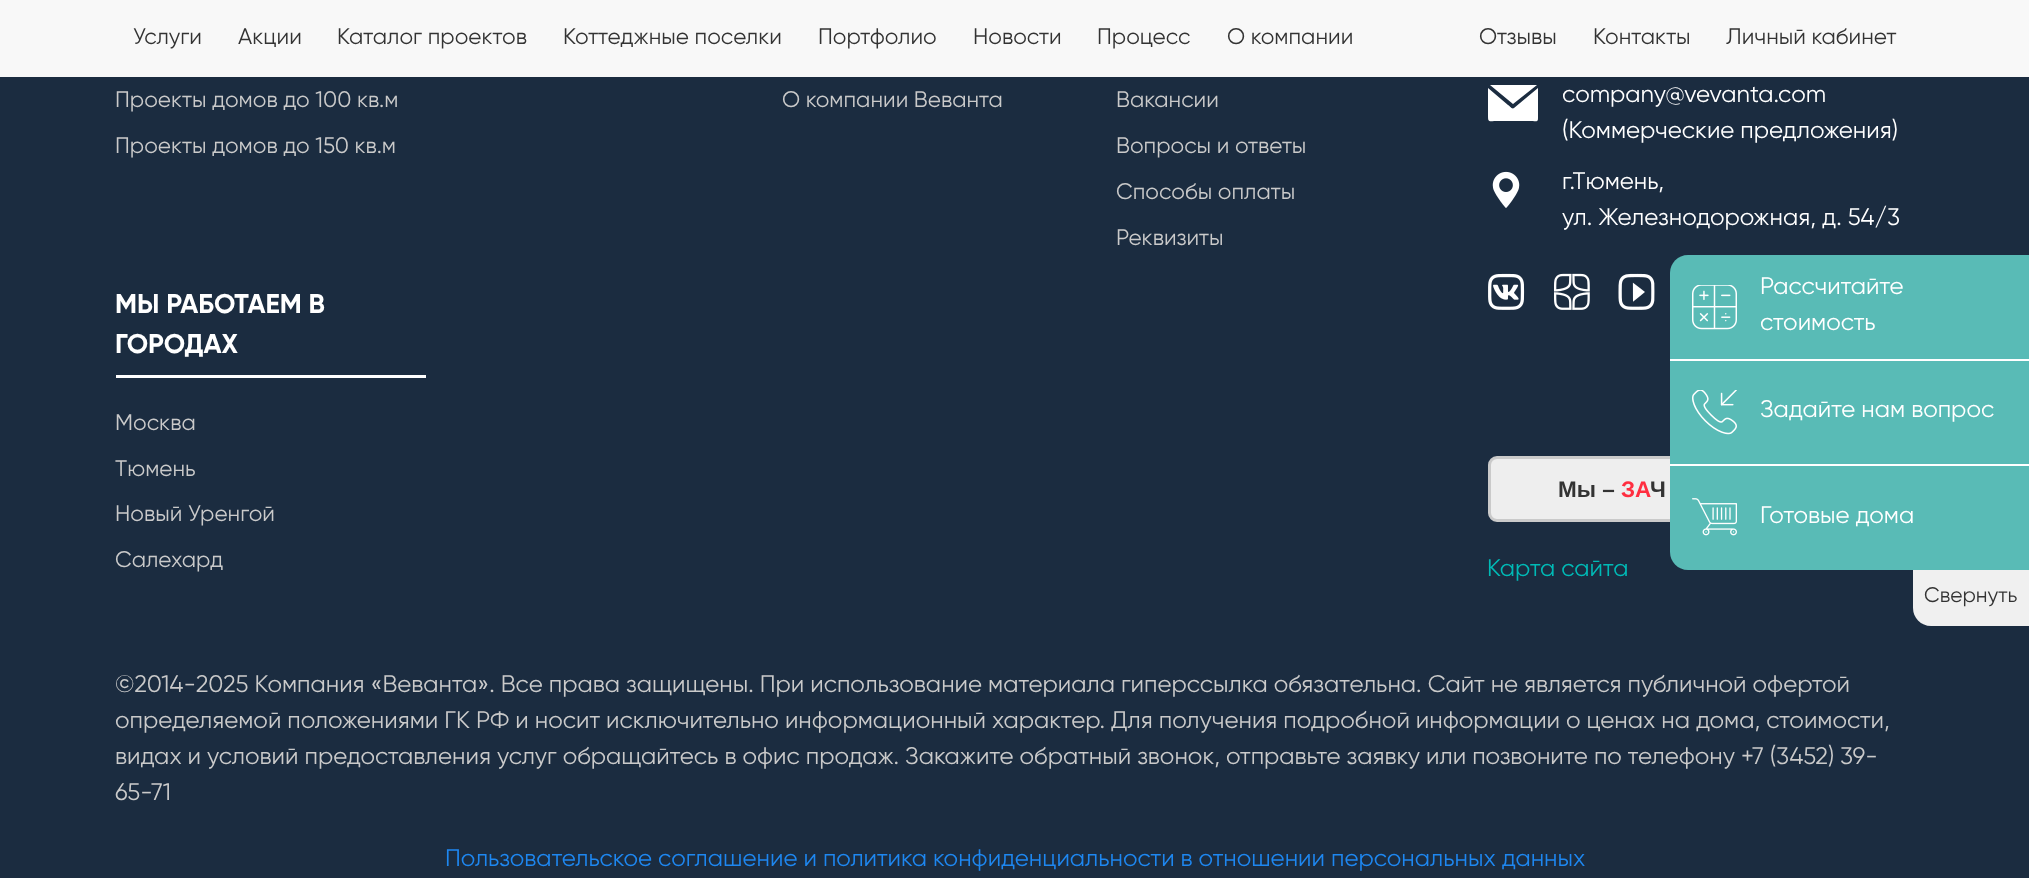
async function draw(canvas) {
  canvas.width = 2029;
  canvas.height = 878;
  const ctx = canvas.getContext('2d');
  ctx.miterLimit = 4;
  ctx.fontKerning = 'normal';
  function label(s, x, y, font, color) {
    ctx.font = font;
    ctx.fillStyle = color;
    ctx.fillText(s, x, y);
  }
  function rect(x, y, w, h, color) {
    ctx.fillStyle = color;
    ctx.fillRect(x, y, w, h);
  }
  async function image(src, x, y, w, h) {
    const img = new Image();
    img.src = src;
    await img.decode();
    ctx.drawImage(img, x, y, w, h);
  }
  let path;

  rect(0, 0, 2029, 878, '#1b2c40');
  rect(0, 0, 2029, 77, '#f8f8f8');
  label('Услуги', 133, 44, '22.5px Gilroy', '#333');
  label('Акции', 238, 44, '22.5px Gilroy', '#333');
  label('Каталог проектов', 337, 44, '22.5px Gilroy', '#333');
  label('Коттеджные поселки', 563, 44, '22.5px Gilroy', '#333');
  label('Портфолио', 818, 44, '22.5px Gilroy', '#333');
  label('Новости', 973, 44, '22.5px Gilroy', '#333');
  label('Процесс', 1097, 44, '22.5px Gilroy', '#333');
  label('О компании', 1227, 44, '22.5px Gilroy', '#333');
  label('Отзывы', 1479, 44, '22.5px Gilroy', '#333');
  label('Контакты', 1593, 44, '22.5px Gilroy', '#333');
  label('Личный кабинет', 1726, 44, '22.5px Gilroy', '#333');
  label('Проекты домов до 100 кв.м', 115, 107, '22.5px Gilroy', '#cacaca');
  label('Проекты домов до 150 кв.м', 115, 153, '22.5px Gilroy', '#cacaca');
  label('О компании Веванта', 782, 107, '22.5px Gilroy', '#cacaca');
  label('Вакансии', 1116, 107, '22.5px Gilroy', '#cacaca');
  label('Вопросы и ответы', 1116, 153, '22.5px Gilroy', '#cacaca');
  label('Способы оплаты', 1116, 199, '22.5px Gilroy', '#cacaca');
  label('Реквизиты', 1116, 245, '22.5px Gilroy', '#cacaca');
  rect(116, 375, 310, 3, '#fff');
  label('МЫ РАБОТАЕМ В', 115, 313, 'bold 27px Gilroy', '#fff');
  label('ГОРОДАХ', 115, 353, 'bold 27px Gilroy', '#fff');
  label('Москва', 115, 430, '22.5px Gilroy', '#cacaca');
  label('Тюмень', 115, 476, '22.5px Gilroy', '#cacaca');
  label('Новый Уренгой', 115, 521, '22.5px Gilroy', '#cacaca');
  label('Салехард', 115, 567, '22.5px Gilroy', '#cacaca');
  ctx.fillStyle = '#fff';
  path = new Path2D('M1537 85H1490L1513 104ZM1514 108C1512 110 1509 105 1508 105L1488 88V114C1488 123 1488 121 1498 121H1529C1539 121 1538 123 1538 114V88Z');
  ctx.fill(path);
  label('company@vevanta.com', 1562, 102, '24px Gilroy', '#fff');
  label('(Коммерческие предложения)', 1562, 138, '24px Gilroy', '#fff');
  await image('assets/img1.png', 1492, 171, 28, 37);
  label('г.Тюмень,', 1562, 189, '24px Gilroy', '#fff');
  label('ул. Железнодорожная, д. 54/3', 1562, 225, '24px Gilroy', '#fff');
  await image('assets/img2.png', 1488, 273, 37, 37);
  await image('assets/img3.png', 1554, 273, 36, 37);
  await image('assets/img4.png', 1618, 273, 37, 37);
  ctx.fillStyle = '#eee';
  ctx.beginPath();
  ctx.roundRect(1489.5, 457.5, 425, 63, 7.5);
  ctx.fill();
  ctx.strokeStyle = '#cacaca';
  ctx.lineWidth = 3;
  ctx.stroke();
  label('Мы –', 1558, 497, 'bold 22.5px Liberation Sans', '#333');
  label('ЗА', 1621, 497, 'bold 22.5px Liberation Sans', '#ff2e40');
  label('Ч', 1650, 497, 'bold 22.5px Liberation Sans', '#333');
  label('Карта сайта', 1487, 576, '24px Gilroy', '#00bab6');
  label('©2014-2025 Компания «Веванта». Все права защищены. При использование материала гиперссылка обязательна. Сайт не является публичной офертой', 115, 692, '24px Gilroy', '#cacaca');
  label('определяемой положениями ГК РФ и носит исключительно информационный характер. Для получения подробной информации о ценах на дома, стоимости,', 115, 728, '24px Gilroy', '#cacaca');
  label('видах и условий предоставления услуг обращайтесь в офис продаж. Закажите обратный звонок, отправьте заявку или позвоните по телефону +7 (3452) 39-', 115, 764, '24px Gilroy', '#cacaca');
  label('65-71', 115, 800, '24px Gilroy', '#cacaca');
  label('Пользовательское соглашение и политика конфиденциальности в отношении персональных данных', 445, 866, '24px Gilroy', '#1e87f0');
  ctx.fillStyle = '#59bbb6';
  path = new Path2D('M1688 255H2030V570H1688C1678 570 1670 562 1670 552V273C1670 263 1678 255 1688 255Z');
  ctx.fill(path);
  rect(1670, 359, 359, 2, '#fff');
  await image('assets/img5.png', 1692, 285, 45, 45);
  label('Рассчитайте', 1760, 294, '24px Gilroy', '#fff');
  label('стоимость', 1760, 330, '24px Gilroy', '#fff');
  rect(1670, 464, 359, 2, '#fff');
  await image('assets/img6.png', 1692, 390, 45, 45);
  label('Задайте нам вопрос', 1760, 417, '24px Gilroy', '#fff');
  await image('assets/img7.png', 1692, 498, 45, 38);
  label('Готовые дома', 1760, 523, '24px Gilroy', '#fff');
  ctx.fillStyle = '#f0f0f0';
  path = new Path2D('M1913 570H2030V626H1931C1921 626 1913 618 1913 608Z');
  ctx.fill(path);
  label('Свернуть', 1924, 602, '21px Gilroy', '#333');
}

draw(document.querySelector('canvas'));
